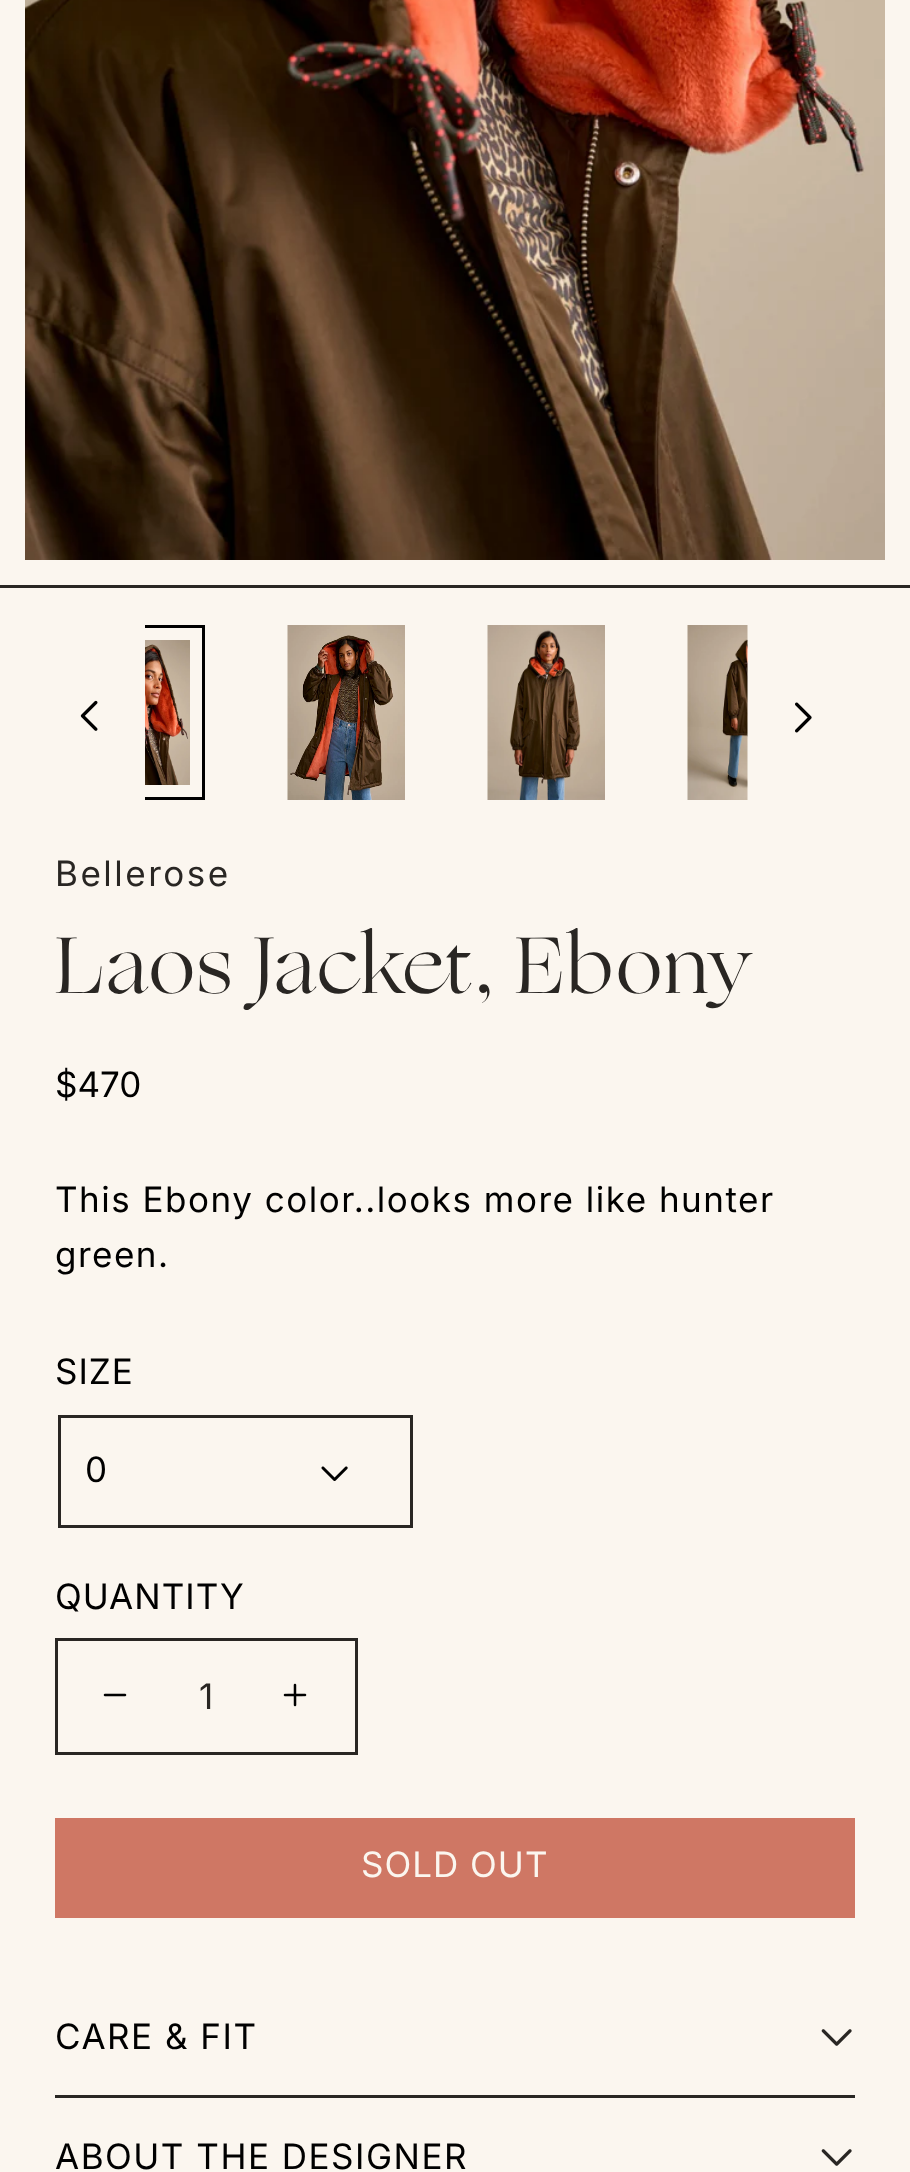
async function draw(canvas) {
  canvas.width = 910;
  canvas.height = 2172;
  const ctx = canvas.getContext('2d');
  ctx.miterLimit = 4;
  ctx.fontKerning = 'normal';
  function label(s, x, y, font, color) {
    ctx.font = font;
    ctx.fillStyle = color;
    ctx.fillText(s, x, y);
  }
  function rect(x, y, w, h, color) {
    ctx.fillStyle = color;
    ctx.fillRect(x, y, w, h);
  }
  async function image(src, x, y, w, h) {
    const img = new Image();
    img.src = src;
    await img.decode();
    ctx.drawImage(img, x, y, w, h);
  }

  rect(0, 0, 910, 2172, '#fbf6ef');
  rect(0, 585, 910, 3, '#292623');
  await image('assets/img1.png', 25, 0, 860, 560);
  await image('assets/img6.png', 80, 700, 18, 31);
  ctx.save();
  ctx.beginPath();
  ctx.rect(145, 625, 88, 175);
  ctx.clip();
  ctx.strokeStyle = '#000';
  ctx.lineWidth = 3;
  ctx.strokeRect(89.5, 626.5, 114, 172);
  ctx.restore();
  await image('assets/img2.png', 145, 640, 45, 145);
  await image('assets/img3.png', 287, 625, 118, 175);
  await image('assets/img4.png', 487, 625, 118, 175);
  await image('assets/img5.png', 687, 625, 61, 175);
  await image('assets/img7.png', 795, 702, 17, 31);
  ctx.letterSpacing = '2.5px';
  label('Bellerose', 55, 886, '35px Inter', '#292623');
  ctx.letterSpacing = '1.5px';
  label('Laos Jacket, Ebony', 55, 993, '80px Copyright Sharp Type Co', '#292623');
  ctx.letterSpacing = '0px';
  label('$470', 55, 1097, '35px Inter', '#000');
  ctx.letterSpacing = '1.5px';
  label('This Ebony color..looks more like hunter', 55, 1212, '35px Inter', '#000');
  label('green.', 55, 1267, '35px Inter', '#000');
  ctx.letterSpacing = '1px';
  label('SIZE', 55, 1384, '35px Inter', '#000');
  ctx.strokeStyle = '#292623';
  ctx.lineWidth = 3;
  ctx.strokeRect(59.5, 1416.5, 352, 110);
  label('0', 85, 1482, '35px Inter', '#000');
  await image('assets/img8.png', 321, 1466, 27, 15);
  label('QUANTITY', 55, 1609, '35px Inter', '#000');
  ctx.strokeRect(56.5, 1639.5, 300, 114);
  await image('assets/img9.png', 103, 1693, 24, 4);
  ctx.letterSpacing = '0px';
  label('1', 199, 1709, '35px Inter', '#292623');
  await image('assets/img10.png', 283, 1683, 24, 24);
  rect(55, 1818, 800, 100, '#cf7764');
  ctx.letterSpacing = '1px';
  label('SOLD OUT', 361, 1877, '35px Inter', '#fbf6ef');
  rect(55, 2095, 800, 3, '#292623');
  ctx.letterSpacing = '1.5px';
  label('CARE & FIT', 55, 2049, '35px Inter', '#000');
  await image('assets/img11.png', 821, 2029, 31, 17);
  label('ABOUT THE DESIGNER', 55, 2169, '35px Inter', '#000');
  await image('assets/img11.png', 821, 2149, 31, 17);
}

draw(document.querySelector('canvas'));
